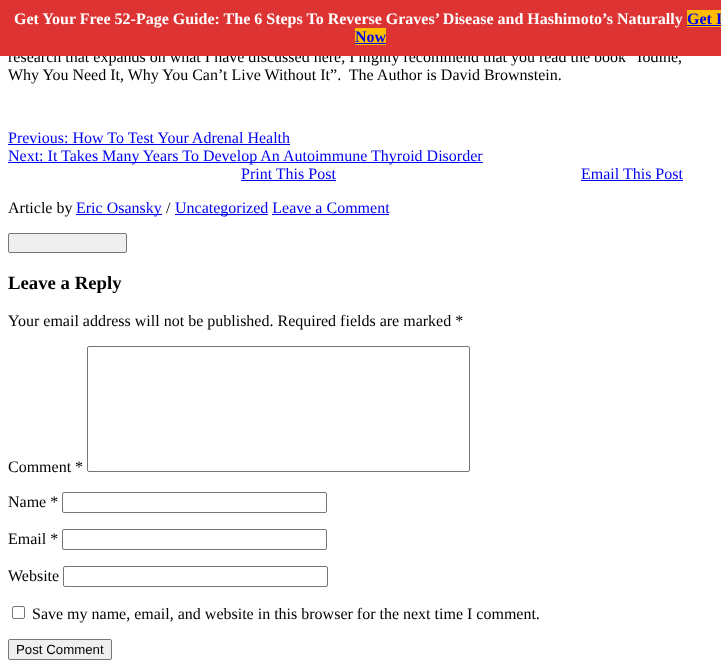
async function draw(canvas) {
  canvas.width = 721;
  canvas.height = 662;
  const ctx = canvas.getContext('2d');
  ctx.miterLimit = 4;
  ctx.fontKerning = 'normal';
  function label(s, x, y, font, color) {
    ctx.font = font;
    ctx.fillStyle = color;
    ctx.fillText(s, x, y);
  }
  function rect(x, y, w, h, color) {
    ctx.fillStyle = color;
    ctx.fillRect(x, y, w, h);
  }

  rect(0, 0, 721, 662, '#fff');
  label('research that expands on what I have discussed here, I highly recommend that you read the book “Iodine,', 8, 62, '16px Liberation Serif', '#000');
  rect(0, 0, 721, 56, '#d33');
  label('Get Your Free 52-Page Guide: The 6 Steps To Reverse Graves’ Disease and Hashimoto’s Naturally', 14, 24, 'bold 16px Liberation Serif', '#fff');
  rect(687, 10, 34, 17, '#ffbd00');
  label('Get I', 687, 24, 'bold 16px Liberation Serif', '#00e');
  rect(687, 25, 34, 1, '#00e');
  rect(355, 28, 31, 17, '#ffbd00');
  label('Now', 355, 42, 'bold 16px Liberation Serif', '#00e');
  rect(355, 43, 31, 1, '#00e');
  label('Why You Need It, Why You Can’t Live Without It”.  The Author is David Brownstein.', 8, 80, '16px Liberation Serif', '#000');
  label('Previous: How To Test Your Adrenal Health', 8, 143, '16px Liberation Serif', '#00e');
  rect(8, 144, 282, 1, '#00e');
  rect(8, 162, 475, 1, '#00e');
  label('Next: It Takes Many Years To Develop An Autoimmune Thyroid Disorder', 8, 161, '16px Liberation Serif', '#00e');
  label('Print This Post', 241, 179, '16px Liberation Serif', '#00e');
  rect(241, 180, 95, 1, '#00e');
  label('Email This Post', 581, 179, '16px Liberation Serif', '#00e');
  rect(581, 180, 102, 1, '#00e');
  label('Article by', 8, 213, '16px Liberation Serif', '#000');
  rect(76, 214, 86, 1, '#00e');
  label('Eric Osansky', 76, 213, '16px Liberation Serif', '#00e');
  label('/', 166, 213, '16px Liberation Serif', '#000');
  rect(175, 214, 93, 1, '#00e');
  label('Uncategorized Leave a Comment', 175, 213, '16px Liberation Serif', '#00e');
  rect(272, 214, 117, 1, '#00e');
  ctx.fillStyle = '#efefef';
  ctx.beginPath();
  ctx.roundRect(8.5, 233.5, 118, 19, 1.5);
  ctx.fill();
  ctx.strokeStyle = '#767676';
  ctx.stroke();
  label('Leave a Reply', 8, 289, 'bold 18.75px Liberation Serif', '#000');
  label('Your email address will not be published. Required fields are marked *', 8, 326, '16px Liberation Serif', '#000');
  label('Comment *', 8, 472, '16px Liberation Serif', '#000');
  ctx.beginPath();
  ctx.roundRect(87.5, 346.5, 382, 125, 1.5);
  ctx.stroke();
  label('Name *', 8, 507, '16px Liberation Serif', '#000');
  ctx.beginPath();
  ctx.roundRect(62.5, 492.5, 264, 20, 1.5);
  ctx.stroke();
  label('Email *', 8, 544, '16px Liberation Serif', '#000');
  ctx.beginPath();
  ctx.roundRect(62.5, 529.5, 264, 20, 1.5);
  ctx.stroke();
  label('Website', 8, 581, '16px Liberation Serif', '#000');
  ctx.beginPath();
  ctx.roundRect(63.5, 566.5, 264, 20, 1.5);
  ctx.stroke();
  ctx.beginPath();
  ctx.roundRect(12.5, 606.5, 12, 12, 1.5);
  ctx.stroke();
  label('Save my name, email, and website in this browser for the next time I comment.', 32, 619, '16px Liberation Serif', '#000');
  ctx.fillStyle = '#efefef';
  ctx.beginPath();
  ctx.roundRect(8.5, 639.5, 103, 20, 1.5);
  ctx.fill();
  ctx.stroke();
  label('Post Comment', 16, 654, '13.25px Liberation Sans', '#000');
}

draw(document.querySelector('canvas'));
